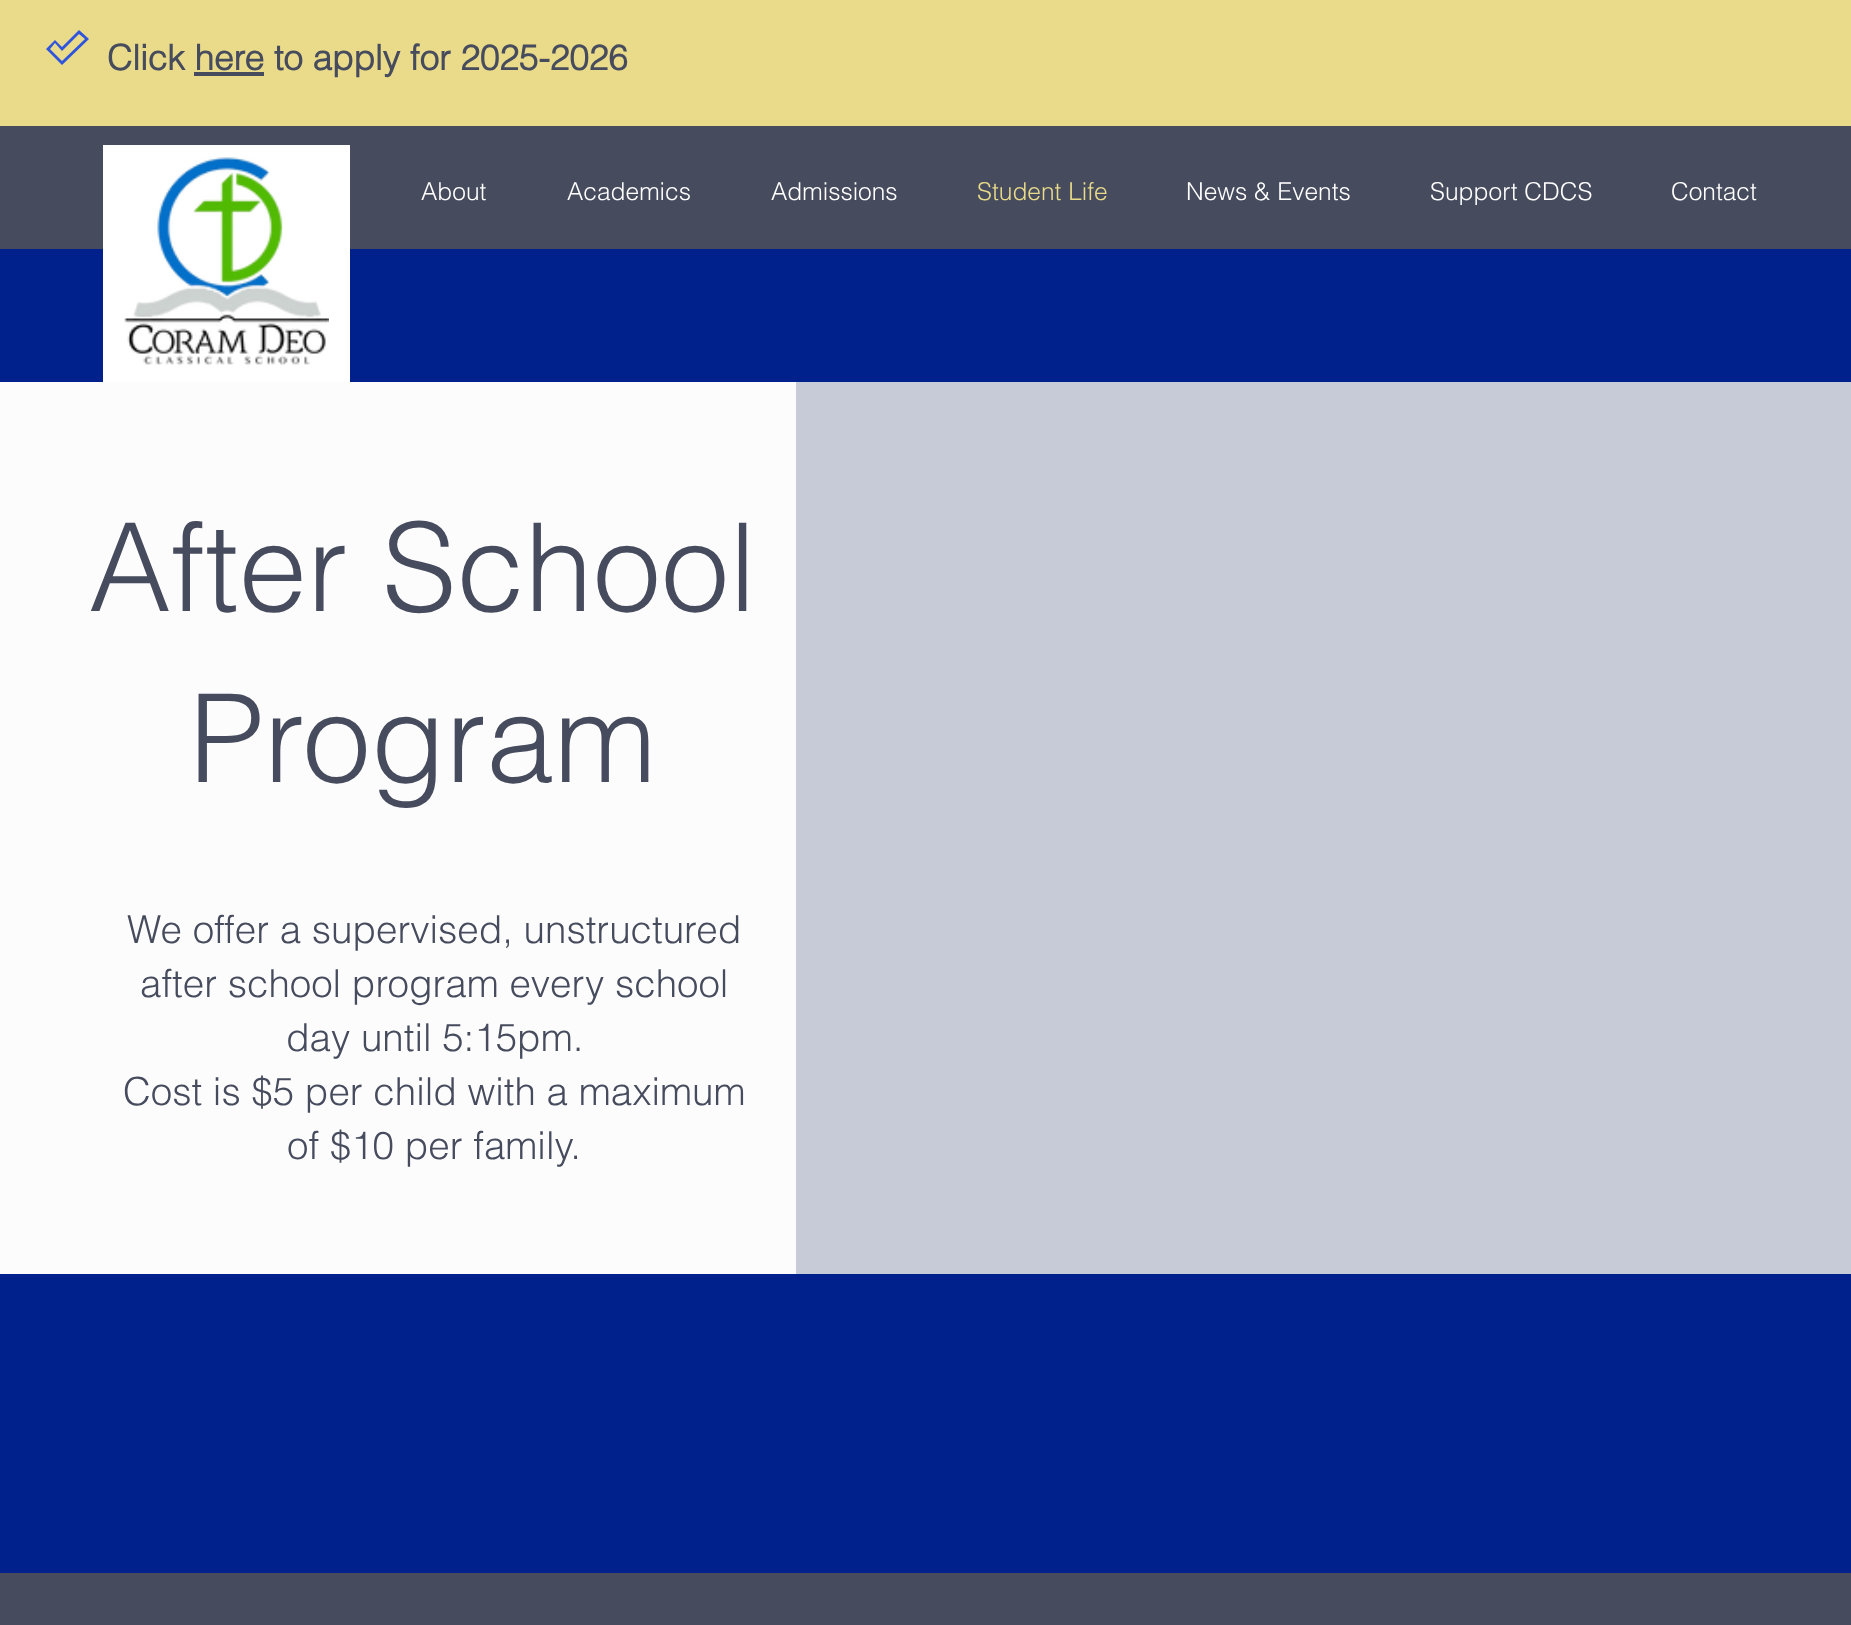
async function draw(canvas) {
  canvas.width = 1851;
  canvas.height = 1625;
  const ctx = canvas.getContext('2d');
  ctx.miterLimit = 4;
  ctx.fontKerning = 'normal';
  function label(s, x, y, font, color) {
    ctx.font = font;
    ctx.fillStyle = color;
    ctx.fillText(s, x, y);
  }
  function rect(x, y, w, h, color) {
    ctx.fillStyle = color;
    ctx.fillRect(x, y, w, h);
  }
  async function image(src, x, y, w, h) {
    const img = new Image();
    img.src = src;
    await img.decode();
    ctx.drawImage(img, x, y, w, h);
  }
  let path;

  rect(0, 0, 1851, 1625, '#00218c');
  rect(0, 0, 1851, 126, '#e9db89');
  ctx.fillStyle = '#2f54dd';
  path = new Path2D('M79 34L85 39L62 61L50 49L55 43L62 51ZM79 30L62 47L55 40L46 49L62 65L89 39Z');
  ctx.fill(path);
  label('Click here to apply for 2025-2026', 107, 70, 'bold 35px helvetica', '#464b5d');
  rect(194, 72, 70, 4, '#464b5d');
  rect(0, 126, 1851, 123, '#464b5d');
  label('About', 421, 200, '300 24.5px helvetica', '#fff');
  label('Academics', 567, 200, '300 24.5px helvetica', '#fff');
  label('Admissions', 771, 200, '300 24.5px helvetica', '#fff');
  label('Student Life', 977, 200, '300 24.5px helvetica', '#e9db89');
  label('News & Events', 1186, 200, '300 24.5px helvetica', '#fff');
  label('Support CDCS', 1430, 200, '300 24.5px helvetica', '#fff');
  label('Contact', 1671, 200, '300 24.5px helvetica', '#fff');
  rect(103, 145, 247, 237, '#fff');
  await image('assets/img1.png', 124, 157, 205, 209);
  rect(0, 382, 796, 892, '#fcfcfc');
  label('After School', 89, 611, '300 122.5px helvetica', '#464b5d');
  label('Program', 189, 782, '300 122.5px helvetica', '#464b5d');
  label('We offer a supervised, unstructured', 127, 943, '300 38.5px helvetica', '#464b5d');
  label('after school program every school', 140, 997, '300 38.5px helvetica', '#464b5d');
  label('day until 5:15pm.', 286, 1051, '300 38.5px helvetica', '#464b5d');
  label('Cost is $5 per child with a maximum', 123, 1105, '300 38.5px helvetica', '#464b5d');
  label('of $10 per family.', 287, 1159, '300 38.5px helvetica', '#464b5d');
  rect(796, 382, 1055, 892, '#c7cbd8');
  rect(0, 1573, 1851, 52, '#464b5d');
}

draw(document.querySelector('canvas'));
